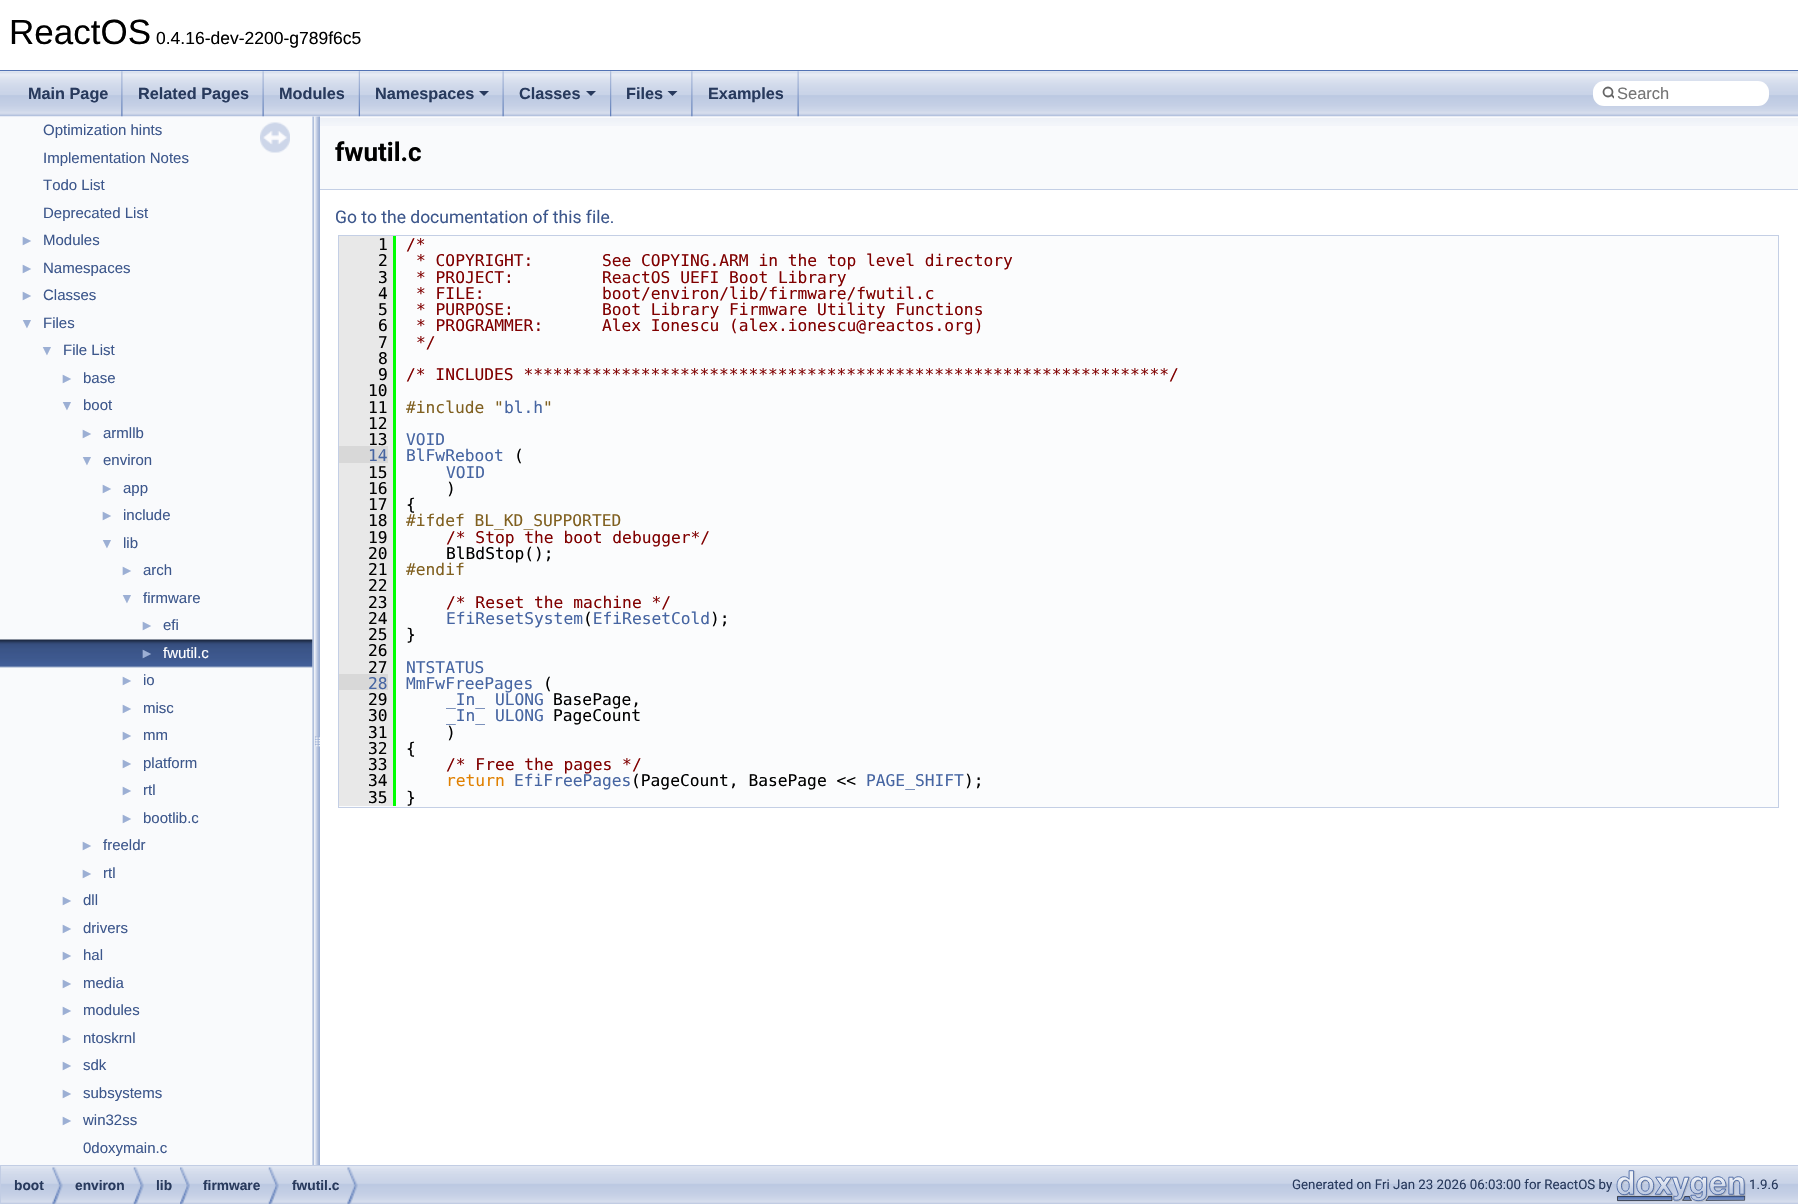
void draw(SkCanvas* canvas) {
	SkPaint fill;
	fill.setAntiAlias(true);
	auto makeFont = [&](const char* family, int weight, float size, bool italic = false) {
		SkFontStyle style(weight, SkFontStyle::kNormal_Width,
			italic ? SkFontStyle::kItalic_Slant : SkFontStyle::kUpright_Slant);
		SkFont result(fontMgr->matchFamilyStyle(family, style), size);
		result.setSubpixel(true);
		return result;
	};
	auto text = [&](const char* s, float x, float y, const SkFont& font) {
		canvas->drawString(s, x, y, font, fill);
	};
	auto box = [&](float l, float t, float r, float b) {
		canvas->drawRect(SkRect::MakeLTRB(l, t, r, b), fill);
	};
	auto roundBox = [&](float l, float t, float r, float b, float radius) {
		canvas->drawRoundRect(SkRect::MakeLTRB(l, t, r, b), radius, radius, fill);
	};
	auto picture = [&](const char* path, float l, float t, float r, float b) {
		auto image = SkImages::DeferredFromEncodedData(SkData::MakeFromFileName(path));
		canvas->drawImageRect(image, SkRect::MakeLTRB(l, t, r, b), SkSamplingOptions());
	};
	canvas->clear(0xFFFFFFFF);
	fill.setColor(0xFF5373B4);
	box(0, 70, 1798, 71);
	fill.setColor(0xFFF9FAFC);
	box(0, 116, 313, 1165);
	picture("image5.png", 0, 639, 313, 668);
	picture("image7.png", 312, 116, 320, 1165);
	box(320, 116, 1798, 189);
	picture("image0.png", 0, 71, 1798, 117);
	picture("image1.png", 121, 71, 123, 117);
	picture("image2.png", 262, 71, 264, 117);
	picture("image3.png", 358, 71, 360, 117);
	picture("image2.png", 502, 71, 504, 117);
	fill.setColor(0xFF283A5D);
	canvas->drawPath(SkPathBuilder().moveTo(479, 91).lineTo(489, 91).lineTo(484, 96).close().detach(), fill);
	picture("image4.png", 610, 71, 612, 117);
	canvas->drawPath(SkPathBuilder().moveTo(586, 91).lineTo(596, 91).lineTo(591, 96).close().detach(), fill);
	picture("image1.png", 691, 71, 693, 117);
	canvas->drawPath(SkPathBuilder().moveTo(667.5f, 91).lineTo(677.5f, 91).lineTo(672.5f, 96).close().detach(), fill);
	picture("image2.png", 797, 71, 799, 117);
	fill.setColor(0xFFFFFFFF);
	roundBox(1593, 81, 1769, 106, 11);
	fill.setStyle(SkPaint::kStroke_Style);
	fill.setStrokeWidth(1.8f);
	fill.setColor(0xFF656565);
	canvas->drawCircle(1608, 92, 4.5f, fill);
	canvas->save();
	canvas->clipRect(SkRect::MakeLTRB(1601, 81, 1614, 105));
	fill.setStrokeCap(SkPaint::kRound_Cap);
	canvas->drawPath(SkPathBuilder().moveTo(1611.5f, 95).lineTo(1615, 98.5f).detach(), fill);
	canvas->restore();
	picture("image6.png", 260, 122, 290, 153);
	picture("image8.png", 320, 118, 1798, 126);
	fill.setStyle(SkPaint::kFill_Style);
	fill.setColor(0xFFC4CFE5);
	box(320, 189, 1798, 190);
	fill.setColor(0xFFFBFCFD);
	canvas->drawRect(SkRect::MakeLTRB(338.5f, 235.5f, 1778.5f, 807.5f), fill);
	fill.setStyle(SkPaint::kStroke_Style);
	fill.setStrokeWidth(1);
	fill.setStrokeCap(SkPaint::kButt_Cap);
	fill.setColor(0xFFC4CFE5);
	canvas->drawRect(SkRect::MakeLTRB(338.5f, 235.5f, 1778.5f, 807.5f), fill);
	fill.setStyle(SkPaint::kFill_Style);
	fill.setColor(0xFFE8E8E8);
	box(339, 236, 393, 446);
	fill.setColor(0xFF00FF00);
	box(393, 236, 396, 806);
	fill.setColor(0xFFE8E8E8);
	box(388, 446, 393, 463);
	fill.setColor(0xFFD8D8D8);
	box(339, 446, 388, 463);
	fill.setColor(0xFFE8E8E8);
	box(339, 463, 393, 674);
	box(388, 674, 393, 690);
	fill.setColor(0xFFD8D8D8);
	box(339, 674, 388, 690);
	fill.setColor(0xFFE8E8E8);
	box(339, 690, 393, 806);
	picture("image9.png", 1, 1166, 1798, 1204);
	fill.setStyle(SkPaint::kStroke_Style);
	fill.setColor(0xFFC2CDE4);
	canvas->drawRect(SkRect::MakeLTRB(0.5f, 1165.5f, 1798.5f, 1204.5f), fill);
	picture("image10.png", 52, 1167, 63, 1204);
	picture("image11.png", 133, 1167, 144, 1204);
	picture("image12.png", 180, 1167, 190, 1204);
	picture("image13.png", 268, 1167, 279, 1204);
	picture("image10.png", 347, 1167, 358, 1204);
	picture("image14.png", 1616, 1170, 1746, 1203);
	auto font1 = makeFont("Liberation Sans", 400, 35);
	fill.setStyle(SkPaint::kFill_Style);
	fill.setColor(0xFF000000);
	text("ReactOS", 9, 44, font1);
	auto font2 = makeFont("Liberation Sans", 400, 17.5f);
	text("0.4.16-dev-2200-g789f6c5", 156, 44, font2);
	auto font3 = makeFont("Liberation Sans", 700, 16.25f);
	fill.setColor(0xFF283A5D);
	text("Main Page", 28, 99, font3);
	text("Related Pages", 138, 99, font3);
	text("Modules", 279, 99, font3);
	text("Namespaces", 375, 99, font3);
	text("Classes", 519, 99, font3);
	text("Files", 626, 99, font3);
	text("Examples", 708, 99, font3);
	auto font4 = makeFont("Liberation Sans", 400, 16.5f);
	fill.setColor(0xFF757575);
	text("Search", 1617, 99, font4);
	auto font5 = makeFont("Liberation Sans", 400, 15);
	fill.setColor(0xFF3D578C);
	text("Optimization hints", 43, 135, font5);
	text("Implementation Notes", 43, 163, font5);
	text("Todo List", 43, 190, font5);
	text("Deprecated List", 43, 218, font5);
	auto font6 = makeFont("Liberation Sans", 400, 14);
	fill.setColor(0xFF9CAFD4);
	text("►", 20, 245, font6);
	fill.setColor(0xFF3D578C);
	text("Modules", 43, 245, font5);
	fill.setColor(0xFF9CAFD4);
	text("►", 20, 273, font6);
	fill.setColor(0xFF3D578C);
	text("Namespaces", 43, 273, font5);
	fill.setColor(0xFF9CAFD4);
	text("►", 20, 300, font6);
	fill.setColor(0xFF3D578C);
	text("Classes", 43, 300, font5);
	fill.setColor(0xFF9CAFD4);
	text("▼", 20, 328, font6);
	fill.setColor(0xFF3D578C);
	text("Files", 43, 328, font5);
	fill.setColor(0xFF9CAFD4);
	text("▼", 40, 355, font6);
	fill.setColor(0xFF3D578C);
	text("File List", 63, 355, font5);
	fill.setColor(0xFF9CAFD4);
	text("►", 60, 383, font6);
	fill.setColor(0xFF3D578C);
	text("base", 83, 383, font5);
	fill.setColor(0xFF9CAFD4);
	text("▼", 60, 410, font6);
	fill.setColor(0xFF3D578C);
	text("boot", 83, 410, font5);
	fill.setColor(0xFF9CAFD4);
	text("►", 80, 438, font6);
	fill.setColor(0xFF3D578C);
	text("armllb", 103, 438, font5);
	fill.setColor(0xFF9CAFD4);
	text("▼", 80, 465, font6);
	fill.setColor(0xFF3D578C);
	text("environ", 103, 465, font5);
	fill.setColor(0xFF9CAFD4);
	text("►", 100, 493, font6);
	fill.setColor(0xFF3D578C);
	text("app", 123, 493, font5);
	fill.setColor(0xFF9CAFD4);
	text("►", 100, 520, font6);
	fill.setColor(0xFF3D578C);
	text("include", 123, 520, font5);
	fill.setColor(0xFF9CAFD4);
	text("▼", 100, 548, font6);
	fill.setColor(0xFF3D578C);
	text("lib", 123, 548, font5);
	fill.setColor(0xFF9CAFD4);
	text("►", 120, 575, font6);
	fill.setColor(0xFF3D578C);
	text("arch", 143, 575, font5);
	fill.setColor(0xFF9CAFD4);
	text("▼", 120, 603, font6);
	fill.setColor(0xFF3D578C);
	text("firmware", 143, 603, font5);
	fill.setColor(0xFF9CAFD4);
	text("►", 140, 630, font6);
	fill.setColor(0xFF3D578C);
	text("efi", 163, 630, font5);
	fill.setColor(0xFF9CAFD4);
	text("►", 140, 658, font6);
	fill.setColor(0xFFFFFFFF);
	text("fwutil.c", 163, 658, font5);
	fill.setColor(0xFF9CAFD4);
	text("►", 120, 685, font6);
	fill.setColor(0xFF3D578C);
	text("io", 143, 685, font5);
	fill.setColor(0xFF9CAFD4);
	text("►", 120, 713, font6);
	fill.setColor(0xFF3D578C);
	text("misc", 143, 713, font5);
	fill.setColor(0xFF9CAFD4);
	text("►", 120, 740, font6);
	fill.setColor(0xFF3D578C);
	text("mm", 143, 740, font5);
	fill.setColor(0xFF9CAFD4);
	text("►", 120, 768, font6);
	fill.setColor(0xFF3D578C);
	text("platform", 143, 768, font5);
	fill.setColor(0xFF9CAFD4);
	text("►", 120, 795, font6);
	fill.setColor(0xFF3D578C);
	text("rtl", 143, 795, font5);
	fill.setColor(0xFF9CAFD4);
	text("►", 120, 823, font6);
	fill.setColor(0xFF3D578C);
	text("bootlib.c", 143, 823, font5);
	fill.setColor(0xFF9CAFD4);
	text("►", 80, 850, font6);
	fill.setColor(0xFF3D578C);
	text("freeldr", 103, 850, font5);
	fill.setColor(0xFF9CAFD4);
	text("►", 80, 878, font6);
	fill.setColor(0xFF3D578C);
	text("rtl", 103, 878, font5);
	fill.setColor(0xFF9CAFD4);
	text("►", 60, 905, font6);
	fill.setColor(0xFF3D578C);
	text("dll", 83, 905, font5);
	fill.setColor(0xFF9CAFD4);
	text("►", 60, 933, font6);
	fill.setColor(0xFF3D578C);
	text("drivers", 83, 933, font5);
	fill.setColor(0xFF9CAFD4);
	text("►", 60, 960, font6);
	fill.setColor(0xFF3D578C);
	text("hal", 83, 960, font5);
	fill.setColor(0xFF9CAFD4);
	text("►", 60, 988, font6);
	fill.setColor(0xFF3D578C);
	text("media", 83, 988, font5);
	fill.setColor(0xFF9CAFD4);
	text("►", 60, 1015, font6);
	fill.setColor(0xFF3D578C);
	text("modules", 83, 1015, font5);
	fill.setColor(0xFF9CAFD4);
	text("►", 60, 1043, font6);
	fill.setColor(0xFF3D578C);
	text("ntoskrnl", 83, 1043, font5);
	fill.setColor(0xFF9CAFD4);
	text("►", 60, 1070, font6);
	fill.setColor(0xFF3D578C);
	text("sdk", 83, 1070, font5);
	fill.setColor(0xFF9CAFD4);
	text("►", 60, 1098, font6);
	fill.setColor(0xFF3D578C);
	text("subsystems", 83, 1098, font5);
	fill.setColor(0xFF9CAFD4);
	text("►", 60, 1125, font6);
	fill.setColor(0xFF3D578C);
	text("win32ss", 83, 1125, font5);
	text("0doxymain.c", 83, 1153, font5);
	auto font7 = makeFont("Roboto", 700, 26);
	fill.setColor(0xFF000000);
	text("fwutil.c", 335, 161, font7);
	auto font8 = makeFont("Roboto", 400, 17.5f);
	fill.setColor(0xFF3D578C);
	text("Go to the documentation of this file.", 335, 223, font8);
	auto font9 = makeFont("DejaVu Sans Mono", 400, 16.25f);
	fill.setColor(0xFF000000);
	text("1", 378, 250, font9);
	fill.setColor(0xFF800000);
	text("/*", 406, 250, font9);
	fill.setColor(0xFF000000);
	text("2", 378, 266, font9);
	fill.setColor(0xFF800000);
	text("* COPYRIGHT:       See COPYING.ARM in the top level directory", 416, 266, font9);
	fill.setColor(0xFF000000);
	text("3", 378, 283, font9);
	fill.setColor(0xFF800000);
	text("* PROJECT:         ReactOS UEFI Boot Library", 416, 283, font9);
	fill.setColor(0xFF000000);
	text("4", 378, 299, font9);
	fill.setColor(0xFF800000);
	text("* FILE:            boot/environ/lib/firmware/fwutil.c", 416, 299, font9);
	fill.setColor(0xFF000000);
	text("5", 378, 315, font9);
	fill.setColor(0xFF800000);
	text("* PURPOSE:         Boot Library Firmware Utility Functions", 416, 315, font9);
	fill.setColor(0xFF000000);
	text("6", 378, 331, font9);
	fill.setColor(0xFF800000);
	text("* PROGRAMMER:      Alex Ionescu (alex.ionescu@reactos.org)", 416, 331, font9);
	fill.setColor(0xFF000000);
	text("7", 378, 348, font9);
	fill.setColor(0xFF800000);
	text("*/", 416, 348, font9);
	fill.setColor(0xFF000000);
	text("8", 378, 364, font9);
	text("9", 378, 380, font9);
	fill.setColor(0xFF800000);
	text("/* INCLUDES ******************************************************************/", 406, 380, font9);
	fill.setColor(0xFF000000);
	text("10", 368, 396, font9);
	text("11", 368, 413, font9);
	fill.setColor(0xFF806020);
	text("#include \"", 406, 413, font9);
	fill.setColor(0xFF4665A2);
	text("bl.h", 504, 413, font9);
	fill.setColor(0xFF806020);
	text("\"", 543, 413, font9);
	fill.setColor(0xFF000000);
	text("12", 368, 429, font9);
	text("13", 368, 445, font9);
	fill.setColor(0xFF4665A2);
	text("VOID", 406, 445, font9);
	text("14", 368, 461, font9);
	text("BlFwReboot", 406, 461, font9);
	fill.setColor(0xFF000000);
	text("(", 514, 461, font9);
	text("15", 368, 478, font9);
	fill.setColor(0xFF4665A2);
	text("VOID", 446, 478, font9);
	fill.setColor(0xFF000000);
	text("16", 368, 494, font9);
	text(")", 446, 494, font9);
	text("17", 368, 510, font9);
	text("{", 406, 510, font9);
	text("18", 368, 526, font9);
	fill.setColor(0xFF806020);
	text("#ifdef BL_KD_SUPPORTED", 406, 526, font9);
	fill.setColor(0xFF000000);
	text("19", 368, 543, font9);
	fill.setColor(0xFF800000);
	text("/* Stop the boot debugger*/", 446, 543, font9);
	fill.setColor(0xFF000000);
	text("20", 368, 559, font9);
	text("BlBdStop();", 446, 559, font9);
	text("21", 368, 575, font9);
	fill.setColor(0xFF806020);
	text("#endif", 406, 575, font9);
	fill.setColor(0xFF000000);
	text("22", 368, 591, font9);
	text("23", 368, 608, font9);
	fill.setColor(0xFF800000);
	text("/* Reset the machine */", 446, 608, font9);
	fill.setColor(0xFF000000);
	text("24", 368, 624, font9);
	fill.setColor(0xFF4665A2);
	text("EfiResetSystem EfiResetCold", 446, 624, font9);
	fill.setColor(0xFF000000);
	text("(", 583, 624, font9);
	text(");", 710, 624, font9);
	text("25", 368, 640, font9);
	text("}", 406, 640, font9);
	text("26", 368, 656, font9);
	text("27", 368, 673, font9);
	fill.setColor(0xFF4665A2);
	text("NTSTATUS", 406, 673, font9);
	text("28", 368, 689, font9);
	text("MmFwFreePages", 406, 689, font9);
	fill.setColor(0xFF000000);
	text("(", 543, 689, font9);
	text("29", 368, 705, font9);
	fill.setColor(0xFF4665A2);
	text("_In_ ULONG", 446, 705, font9);
	fill.setColor(0xFF000000);
	text("BasePage,", 553, 705, font9);
	text("30", 368, 721, font9);
	fill.setColor(0xFF4665A2);
	text("_In_ ULONG", 446, 721, font9);
	fill.setColor(0xFF000000);
	text("PageCount", 553, 721, font9);
	text("31", 368, 738, font9);
	text(")", 446, 738, font9);
	text("32", 368, 754, font9);
	text("{", 406, 754, font9);
	text("33", 368, 770, font9);
	fill.setColor(0xFF800000);
	text("/* Free the pages */", 446, 770, font9);
	fill.setColor(0xFF000000);
	text("34", 368, 786, font9);
	fill.setColor(0xFFE08000);
	text("return", 446, 786, font9);
	fill.setColor(0xFF4665A2);
	text("EfiFreePages", 514, 786, font9);
	fill.setColor(0xFF000000);
	text("(PageCount, BasePage <<", 631, 786, font9);
	fill.setColor(0xFF4665A2);
	text("PAGE_SHIFT", 866, 786, font9);
	fill.setColor(0xFF000000);
	text(");", 964, 786, font9);
	text("35", 368, 803, font9);
	text("}", 406, 803, font9);
	auto font10 = makeFont("Liberation Sans", 700, 13.75f);
	fill.setColor(0xFF283A5D);
	text("boot", 14, 1190, font10);
	text("environ", 75, 1190, font10);
	text("lib", 156, 1190, font10);
	text("firmware", 203, 1190, font10);
	text("fwutil.c", 292, 1190, font10);
	auto font11 = makeFont("Roboto", 400, 13.3f);
	text("Generated on Fri Jan 23 2026 06:03:00 for ReactOS by", 1292, 1189, font11);
	text("1.9.6", 1749, 1189, font11);
}
